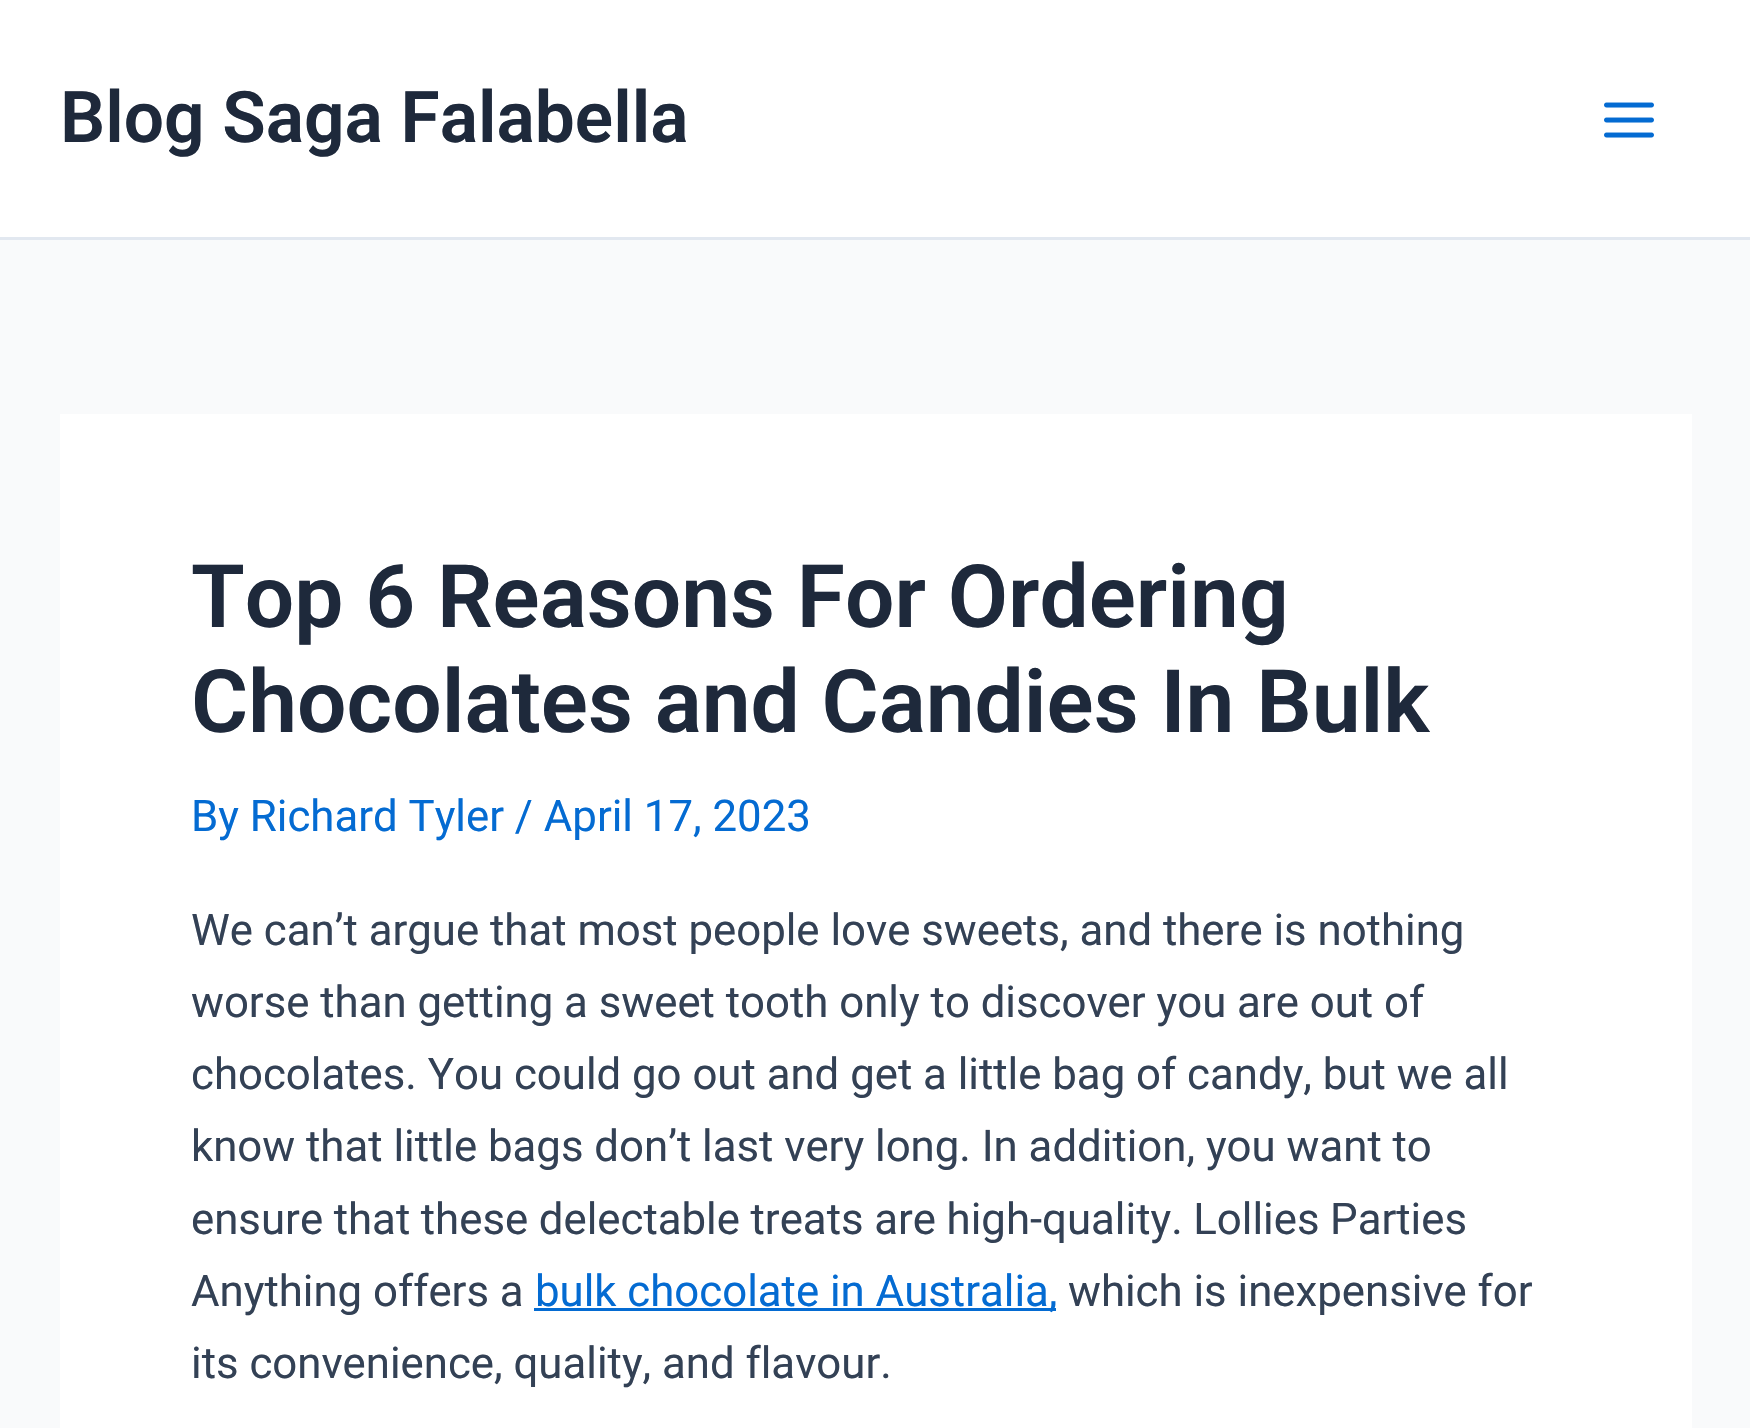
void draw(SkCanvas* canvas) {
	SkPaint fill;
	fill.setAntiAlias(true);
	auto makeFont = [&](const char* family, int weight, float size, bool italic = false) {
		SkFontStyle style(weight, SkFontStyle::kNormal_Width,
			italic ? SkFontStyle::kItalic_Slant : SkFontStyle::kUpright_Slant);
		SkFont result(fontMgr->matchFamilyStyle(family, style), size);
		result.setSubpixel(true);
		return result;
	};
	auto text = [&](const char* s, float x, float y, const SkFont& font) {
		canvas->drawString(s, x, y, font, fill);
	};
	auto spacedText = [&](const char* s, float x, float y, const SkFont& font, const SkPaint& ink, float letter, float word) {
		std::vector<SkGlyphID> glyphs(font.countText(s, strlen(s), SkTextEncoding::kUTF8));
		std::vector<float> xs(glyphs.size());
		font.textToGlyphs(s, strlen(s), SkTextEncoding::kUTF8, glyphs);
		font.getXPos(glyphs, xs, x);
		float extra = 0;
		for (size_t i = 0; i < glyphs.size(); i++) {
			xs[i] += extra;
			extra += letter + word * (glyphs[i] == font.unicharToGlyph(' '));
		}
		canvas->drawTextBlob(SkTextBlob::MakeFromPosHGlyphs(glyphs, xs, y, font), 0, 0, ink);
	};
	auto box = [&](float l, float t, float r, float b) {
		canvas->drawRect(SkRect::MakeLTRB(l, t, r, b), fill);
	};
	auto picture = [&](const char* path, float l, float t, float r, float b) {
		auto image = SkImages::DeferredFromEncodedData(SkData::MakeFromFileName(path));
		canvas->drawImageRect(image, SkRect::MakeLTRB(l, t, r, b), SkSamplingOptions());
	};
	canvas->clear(0xFFF9FAFB);
	fill.setColor(0xFFFFFFFF);
	box(0, 0, 1750, 237);
	fill.setColor(0xFFE2E8F0);
	box(0, 237, 1750, 240);
	picture("image0.png", 1604, 102, 1654, 138);
	fill.setColor(0xFFFFFFFF);
	box(60, 414, 1692, 1428);
	fill.setColor(0xFF046BD2);
	box(534, 1308, 1056, 1311);
	auto font1 = makeFont("Roboto", 600, 71.25f);
	fill.setColor(0xFF1E293B);
	text("Blog Saga Falabella", 60, 142, font1);
	auto font2 = makeFont("Roboto", 600, 87.5f);
	text("Top 6 Reasons For Ordering", 191, 627, font2);
	text("Chocolates and Candies In Bulk", 191, 732, font2);
	auto font3 = makeFont("Roboto", 400, 43.75f);
	fill.setColor(0xFF046BD2);
	text("By Richard Tyler / April 17, 2023", 191, 831, font3);
	fill.setColor(0xFF334155);
	text("We can’t argue that most people love sweets, and there is nothing", 191, 945, font3);
	text("worse than getting a sweet tooth only to discover you are out of", 191, 1017, font3);
	text("chocolates. You could go out and get a little bag of candy, but we all", 191, 1089, font3);
	text("know that little bags don’t last very long. In addition, you want to", 191, 1161, font3);
	spacedText("ensure that these delectable treats are high-quality. Lollies Parties", 191, 1234, font3, fill, 0, -0.25f);
	text("Anything offers a", 191, 1306, font3);
	fill.setColor(0xFF046BD2);
	text("bulk chocolate in Australia,", 535, 1306, font3);
	fill.setColor(0xFF334155);
	text("which is inexpensive for", 1068, 1306, font3);
	text("its convenience, quality, and flavour.", 191, 1378, font3);
}
